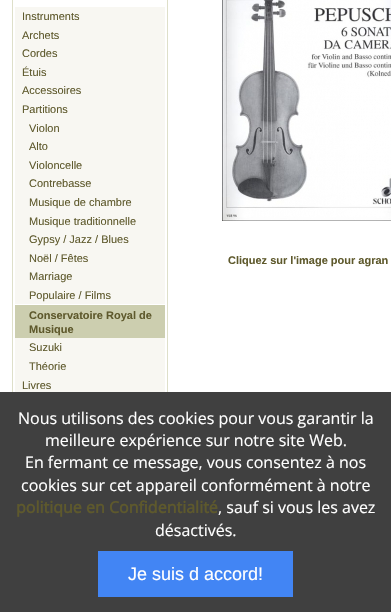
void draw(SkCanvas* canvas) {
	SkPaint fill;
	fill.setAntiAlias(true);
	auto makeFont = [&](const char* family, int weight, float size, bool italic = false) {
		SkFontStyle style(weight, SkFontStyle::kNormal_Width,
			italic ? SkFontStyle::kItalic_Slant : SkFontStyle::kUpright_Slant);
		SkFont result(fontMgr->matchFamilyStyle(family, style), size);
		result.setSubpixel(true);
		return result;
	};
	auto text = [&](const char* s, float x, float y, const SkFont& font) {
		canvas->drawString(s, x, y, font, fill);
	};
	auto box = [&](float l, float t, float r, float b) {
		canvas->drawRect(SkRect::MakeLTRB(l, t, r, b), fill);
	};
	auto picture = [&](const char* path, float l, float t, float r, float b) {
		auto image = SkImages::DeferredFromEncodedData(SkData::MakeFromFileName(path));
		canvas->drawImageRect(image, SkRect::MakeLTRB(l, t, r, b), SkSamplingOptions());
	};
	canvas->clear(0xFFFFFFFF);
	fill.setStyle(SkPaint::kStroke_Style);
	fill.setStrokeWidth(1);
	fill.setColor(0xFFDEDFC9);
	canvas->drawRect(SkRect::MakeLTRB(12.5f, -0.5f, 167.5f, 538.5f), fill);
	fill.setStyle(SkPaint::kFill_Style);
	fill.setColor(0xFFF8F7F2);
	box(15, 7, 165, 392);
	fill.setColor(0xFFCCCEAF);
	box(15, 305, 165, 338);
	fill.setColor(0xFFFFFFFF);
	box(15, 304, 165, 305);
	picture("image0.png", 222, 0, 391, 221);
	fill.setColor(0xFF404040);
	box(0, 392, 391, 612);
	fill.setColor(0xFF4285F4);
	box(98, 551, 293, 597);
	auto font1 = makeFont("Liberation Sans", 400, 11);
	fill.setColor(0xFF5E592C);
	text("Instruments", 22, 20, font1);
	text("Archets", 22, 39, font1);
	text("Cordes", 22, 57, font1);
	text("Étuis", 22, 76, font1);
	text("Accessoires", 22, 94, font1);
	text("Partitions", 22, 113, font1);
	text("Violon", 29, 132, font1);
	text("Alto", 29, 150, font1);
	text("Violoncelle", 29, 169, font1);
	text("Contrebasse", 29, 187, font1);
	text("Musique de chambre", 29, 206, font1);
	text("Musique traditionnelle", 29, 225, font1);
	text("Gypsy / Jazz / Blues", 29, 243, font1);
	text("Noël / Fêtes", 29, 262, font1);
	text("Marriage", 29, 280, font1);
	text("Populaire / Films", 29, 299, font1);
	auto font2 = makeFont("Liberation Sans", 700, 11);
	text("Conservatoire Royal de", 29, 319, font2);
	text("Musique", 29, 333, font2);
	text("Suzuki", 29, 351, font1);
	text("Théorie", 29, 370, font1);
	text("Livres", 22, 389, font1);
	text("Cliquez sur l'image pour agran", 228, 264, font2);
	auto font3 = makeFont("Open Sans", 400, 16);
	fill.setColor(0xFFFFFFFF);
	text("Nous utilisons des cookies pour vous garantir la", 18, 424, font3);
	text("meilleure expérience sur notre site Web.", 45, 446, font3);
	text("En fermant ce message, vous consentez à nos", 25, 468, font3);
	text("cookies sur cet appareil conformément à notre", 21, 491, font3);
	auto font4 = makeFont("Open Sans", 700, 16);
	fill.setColor(0xFF5E592C);
	text("politique en Confidentialité", 16, 513, font4);
	fill.setColor(0xFFFFFFFF);
	text(", sauf si vous les avez", 218, 513, font3);
	text("désactivés.", 155, 536, font3);
	auto font5 = makeFont("Liberation Sans", 400, 18);
	text("Je suis d accord!", 128, 580, font5);
}
